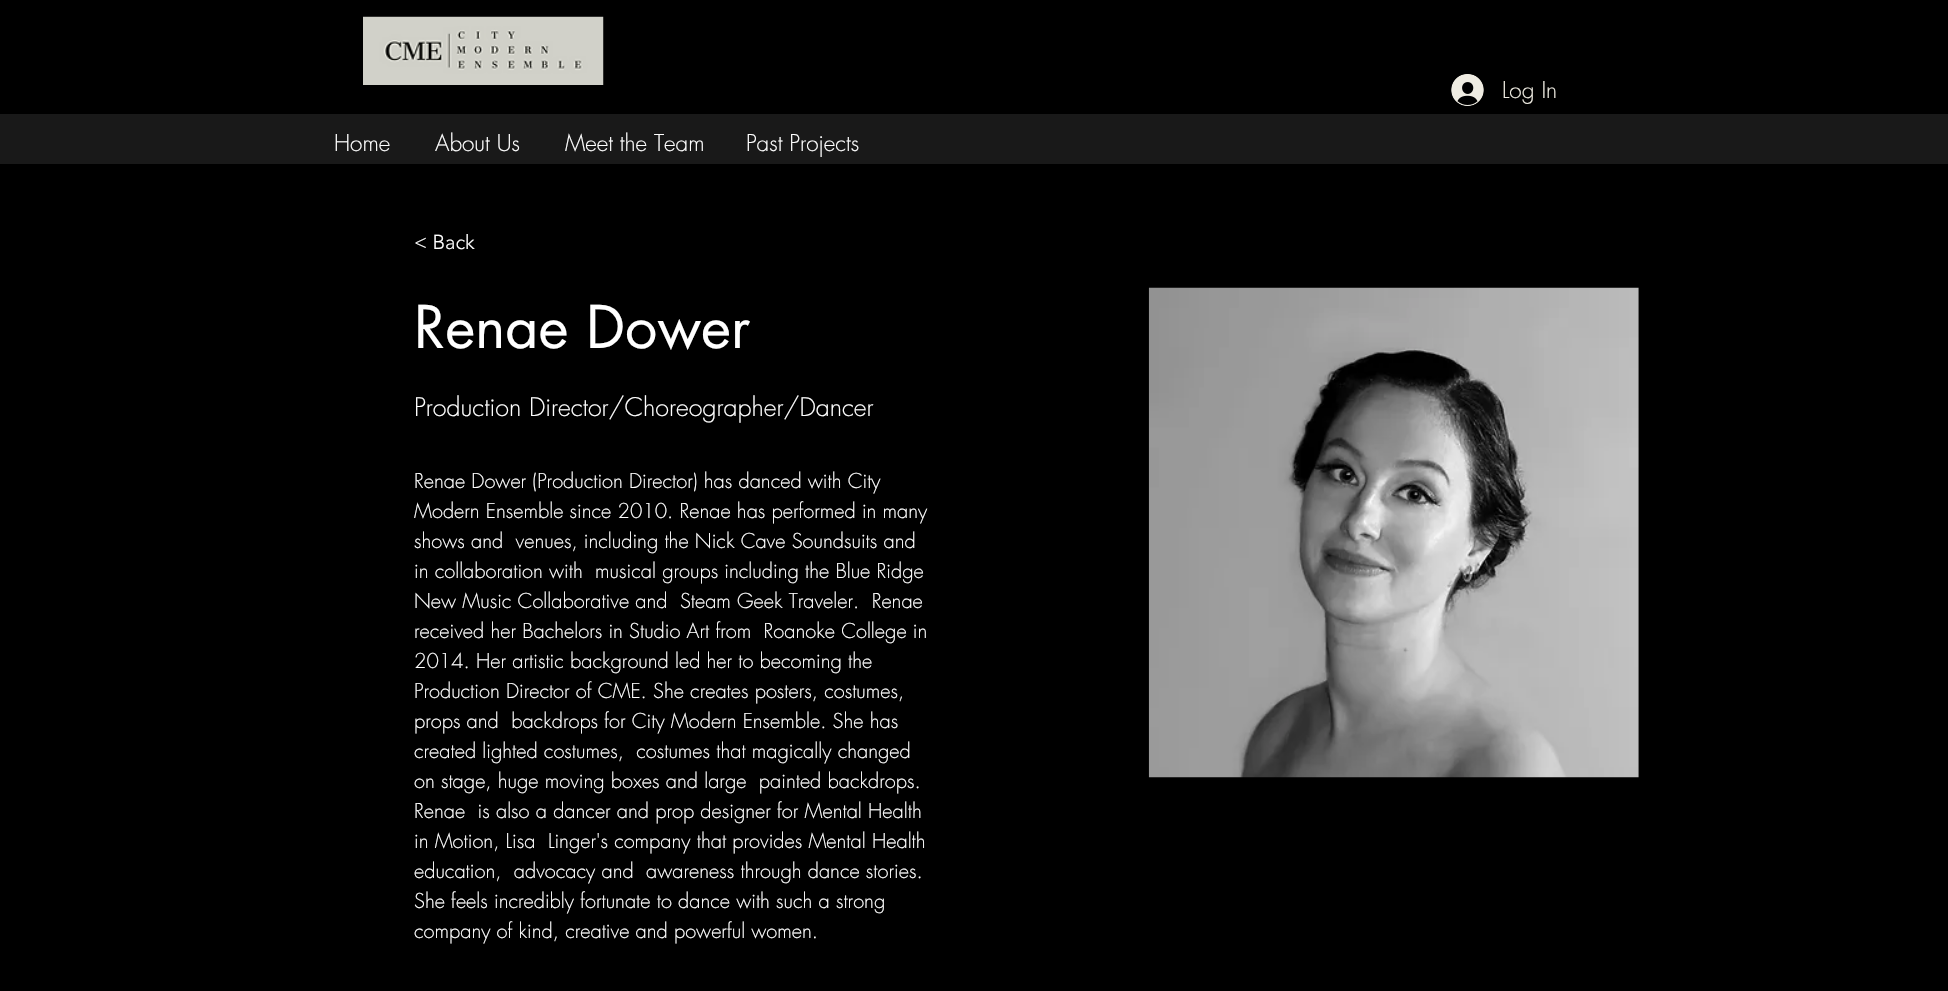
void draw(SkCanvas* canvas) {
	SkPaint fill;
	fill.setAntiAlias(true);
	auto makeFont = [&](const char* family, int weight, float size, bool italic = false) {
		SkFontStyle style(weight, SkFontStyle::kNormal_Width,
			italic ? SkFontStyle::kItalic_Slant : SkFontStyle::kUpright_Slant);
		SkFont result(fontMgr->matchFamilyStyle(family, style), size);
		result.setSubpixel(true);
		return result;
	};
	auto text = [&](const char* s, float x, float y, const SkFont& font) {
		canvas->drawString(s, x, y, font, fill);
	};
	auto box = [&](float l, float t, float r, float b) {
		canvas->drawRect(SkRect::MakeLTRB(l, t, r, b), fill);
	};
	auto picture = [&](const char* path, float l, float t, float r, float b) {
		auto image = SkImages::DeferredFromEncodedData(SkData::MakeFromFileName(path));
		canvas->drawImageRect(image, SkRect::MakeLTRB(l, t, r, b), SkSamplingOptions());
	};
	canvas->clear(0xFF000000);
	picture("image0.png", 363, 16, 604, 85);
	picture("image1.png", 1451, 74, 1484, 106);
	fill.setColor(0xFF191919);
	box(0, 114, 1948, 164);
	picture("image2.png", 1148, 287, 1639, 778);
	auto font1 = makeFont("futura", 300, 22.5f);
	fill.setColor(0xFFEFECE2);
	text("Log In", 1502, 98, font1);
	fill.setColor(0xFFFFFFFF);
	text("Home", 334, 151, font1);
	text("About Us", 435, 151, font1);
	text("Meet the Team", 565, 151, font1);
	text("Past Projects", 746, 151, font1);
	auto font2 = makeFont("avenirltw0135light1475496", 300, 20);
	text("< Back", 414, 249, font2);
	auto font3 = makeFont("futura", 400, 57.5f);
	text("Renae Dower", 414, 348, font3);
	auto font4 = makeFont("futura", 300, 25);
	text("Production Director/Choreographer/Dancer", 414, 416, font4);
	auto font5 = makeFont("futura", 300, 20);
	text("Renae Dower (Production Director) has danced with City", 414, 488, font5);
	text("Modern Ensemble since 2010. Renae has performed in many", 414, 518, font5);
	text("shows and  venues, including the Nick Cave Soundsuits and", 414, 548, font5);
	text("in collaboration with  musical groups including the Blue Ridge", 414, 578, font5);
	text("New Music Collaborative and  Steam Geek Traveler.  Renae", 414, 608, font5);
	text("received her Bachelors in Studio Art from  Roanoke College in", 414, 638, font5);
	text("2014. Her artistic background led her to becoming the", 414, 668, font5);
	text("Production Director of CME. She creates posters, costumes,", 414, 698, font5);
	text("props and  backdrops for City Modern Ensemble. She has", 414, 728, font5);
	text("created lighted costumes,  costumes that magically changed", 414, 758, font5);
	text("on stage, huge moving boxes and large  painted backdrops.", 414, 788, font5);
	text("Renae  is also a dancer and prop designer for Mental Health", 414, 818, font5);
	text("in Motion, Lisa  Linger's company that provides Mental Health", 414, 848, font5);
	text("education,  advocacy and  awareness through dance stories.", 414, 878, font5);
	text("She feels incredibly fortunate to dance with such a strong", 414, 908, font5);
	text("company of kind, creative and powerful women.", 414, 938, font5);
}
